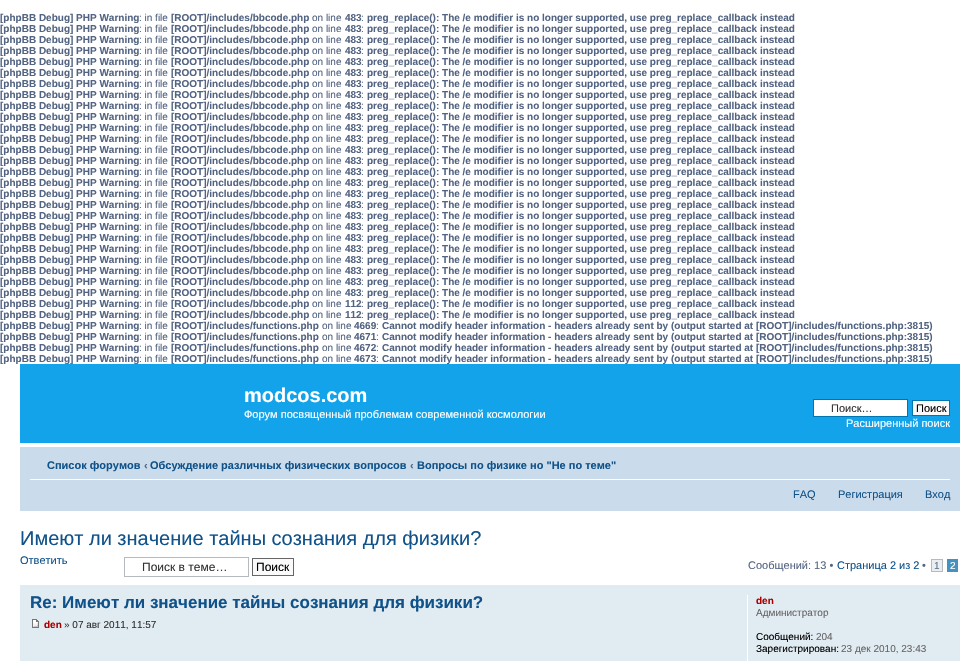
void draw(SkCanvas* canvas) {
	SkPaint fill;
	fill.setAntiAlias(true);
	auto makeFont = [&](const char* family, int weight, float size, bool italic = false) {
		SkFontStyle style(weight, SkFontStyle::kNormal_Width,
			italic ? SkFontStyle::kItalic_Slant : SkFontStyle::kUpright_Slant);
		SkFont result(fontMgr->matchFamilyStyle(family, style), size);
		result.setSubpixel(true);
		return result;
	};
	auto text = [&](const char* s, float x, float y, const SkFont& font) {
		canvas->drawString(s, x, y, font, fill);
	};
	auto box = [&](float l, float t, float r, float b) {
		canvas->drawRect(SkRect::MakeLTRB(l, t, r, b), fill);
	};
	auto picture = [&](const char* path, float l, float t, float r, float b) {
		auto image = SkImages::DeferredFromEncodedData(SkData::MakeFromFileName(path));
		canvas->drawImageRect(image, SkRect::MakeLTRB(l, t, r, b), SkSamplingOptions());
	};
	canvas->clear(0xFFFFFFFF);
	fill.setColor(0xFF12A3EB);
	box(20, 364, 960, 443);
	fill.setColor(0xFFFFFFFF);
	canvas->drawRect(SkRect::MakeLTRB(813.5f, 399.5f, 907.5f, 416.5f), fill);
	fill.setStyle(SkPaint::kStroke_Style);
	fill.setStrokeWidth(1);
	fill.setColor(0xFF0075B0);
	canvas->drawRect(SkRect::MakeLTRB(813.5f, 399.5f, 907.5f, 416.5f), fill);
	fill.setStyle(SkPaint::kFill_Style);
	fill.setColor(0xFFFAFAFA);
	canvas->drawRect(SkRect::MakeLTRB(912.5f, 400.5f, 949.5f, 415.5f), fill);
	fill.setStyle(SkPaint::kStroke_Style);
	fill.setColor(0xFF0075B0);
	canvas->drawRect(SkRect::MakeLTRB(912.5f, 400.5f, 949.5f, 415.5f), fill);
	fill.setStyle(SkPaint::kFill_Style);
	fill.setColor(0xFFCADCEB);
	box(20, 447, 960, 511);
	fill.setColor(0xFFFFFFFF);
	box(30, 479, 950, 480);
	fill.setStyle(SkPaint::kStroke_Style);
	fill.setColor(0xFFB4BAC0);
	canvas->drawRect(SkRect::MakeLTRB(124.5f, 557.5f, 248.5f, 576.5f), fill);
	fill.setStyle(SkPaint::kFill_Style);
	fill.setColor(0xFFFAFAFA);
	canvas->drawRect(SkRect::MakeLTRB(252.5f, 558.5f, 293.5f, 575.5f), fill);
	fill.setStyle(SkPaint::kStroke_Style);
	fill.setColor(0xFF666666);
	canvas->drawRect(SkRect::MakeLTRB(252.5f, 558.5f, 293.5f, 575.5f), fill);
	fill.setStyle(SkPaint::kFill_Style);
	fill.setColor(0xFFECEDEE);
	canvas->drawRect(SkRect::MakeLTRB(931.5f, 559.5f, 942.5f, 571.5f), fill);
	fill.setStyle(SkPaint::kStroke_Style);
	fill.setColor(0xFFB4BAC0);
	canvas->drawRect(SkRect::MakeLTRB(931.5f, 559.5f, 942.5f, 571.5f), fill);
	fill.setStyle(SkPaint::kFill_Style);
	fill.setColor(0xFF4692BF);
	box(947, 559, 958, 572);
	fill.setColor(0xFFE1EBF2);
	box(20, 585, 960, 661);
	picture("image0.png", 32, 619, 39, 628);
	fill.setColor(0xFFFFFFFF);
	box(747, 595, 748, 661);
	auto font1 = makeFont("Liberation Sans", 700, 10);
	fill.setColor(0xFF536482);
	text("[phpBB Debug] PHP Warning", 0, 21, font1);
	auto font2 = makeFont("Liberation Sans", 400, 10);
	text(": in file", 139, 21, font2);
	text("[ROOT]/includes/bbcode.php", 171, 21, font1);
	text("on line", 312, 21, font2);
	text("483", 345, 21, font1);
	text(":", 361, 21, font2);
	text("preg_replace(): The /e modifier is no longer supported, use preg_replace_callback instead", 367, 21, font1);
	text("[phpBB Debug] PHP Warning", 0, 32, font1);
	text(": in file", 139, 32, font2);
	text("[ROOT]/includes/bbcode.php", 171, 32, font1);
	text("on line", 312, 32, font2);
	text("483", 345, 32, font1);
	text(":", 361, 32, font2);
	text("preg_replace(): The /e modifier is no longer supported, use preg_replace_callback instead", 367, 32, font1);
	text("[phpBB Debug] PHP Warning", 0, 43, font1);
	text(": in file", 139, 43, font2);
	text("[ROOT]/includes/bbcode.php", 171, 43, font1);
	text("on line", 312, 43, font2);
	text("483", 345, 43, font1);
	text(":", 361, 43, font2);
	text("preg_replace(): The /e modifier is no longer supported, use preg_replace_callback instead", 367, 43, font1);
	text("[phpBB Debug] PHP Warning", 0, 54, font1);
	text(": in file", 139, 54, font2);
	text("[ROOT]/includes/bbcode.php", 171, 54, font1);
	text("on line", 312, 54, font2);
	text("483", 345, 54, font1);
	text(":", 361, 54, font2);
	text("preg_replace(): The /e modifier is no longer supported, use preg_replace_callback instead", 367, 54, font1);
	text("[phpBB Debug] PHP Warning", 0, 65, font1);
	text(": in file", 139, 65, font2);
	text("[ROOT]/includes/bbcode.php", 171, 65, font1);
	text("on line", 312, 65, font2);
	text("483", 345, 65, font1);
	text(":", 361, 65, font2);
	text("preg_replace(): The /e modifier is no longer supported, use preg_replace_callback instead", 367, 65, font1);
	text("[phpBB Debug] PHP Warning", 0, 76, font1);
	text(": in file", 139, 76, font2);
	text("[ROOT]/includes/bbcode.php", 171, 76, font1);
	text("on line", 312, 76, font2);
	text("483", 345, 76, font1);
	text(":", 361, 76, font2);
	text("preg_replace(): The /e modifier is no longer supported, use preg_replace_callback instead", 367, 76, font1);
	text("[phpBB Debug] PHP Warning", 0, 87, font1);
	text(": in file", 139, 87, font2);
	text("[ROOT]/includes/bbcode.php", 171, 87, font1);
	text("on line", 312, 87, font2);
	text("483", 345, 87, font1);
	text(":", 361, 87, font2);
	text("preg_replace(): The /e modifier is no longer supported, use preg_replace_callback instead", 367, 87, font1);
	text("[phpBB Debug] PHP Warning", 0, 98, font1);
	text(": in file", 139, 98, font2);
	text("[ROOT]/includes/bbcode.php", 171, 98, font1);
	text("on line", 312, 98, font2);
	text("483", 345, 98, font1);
	text(":", 361, 98, font2);
	text("preg_replace(): The /e modifier is no longer supported, use preg_replace_callback instead", 367, 98, font1);
	text("[phpBB Debug] PHP Warning", 0, 109, font1);
	text(": in file", 139, 109, font2);
	text("[ROOT]/includes/bbcode.php", 171, 109, font1);
	text("on line", 312, 109, font2);
	text("483", 345, 109, font1);
	text(":", 361, 109, font2);
	text("preg_replace(): The /e modifier is no longer supported, use preg_replace_callback instead", 367, 109, font1);
	text("[phpBB Debug] PHP Warning", 0, 120, font1);
	text(": in file", 139, 120, font2);
	text("[ROOT]/includes/bbcode.php", 171, 120, font1);
	text("on line", 312, 120, font2);
	text("483", 345, 120, font1);
	text(":", 361, 120, font2);
	text("preg_replace(): The /e modifier is no longer supported, use preg_replace_callback instead", 367, 120, font1);
	text("[phpBB Debug] PHP Warning", 0, 131, font1);
	text(": in file", 139, 131, font2);
	text("[ROOT]/includes/bbcode.php", 171, 131, font1);
	text("on line", 312, 131, font2);
	text("483", 345, 131, font1);
	text(":", 361, 131, font2);
	text("preg_replace(): The /e modifier is no longer supported, use preg_replace_callback instead", 367, 131, font1);
	text("[phpBB Debug] PHP Warning", 0, 142, font1);
	text(": in file", 139, 142, font2);
	text("[ROOT]/includes/bbcode.php", 171, 142, font1);
	text("on line", 312, 142, font2);
	text("483", 345, 142, font1);
	text(":", 361, 142, font2);
	text("preg_replace(): The /e modifier is no longer supported, use preg_replace_callback instead", 367, 142, font1);
	text("[phpBB Debug] PHP Warning", 0, 153, font1);
	text(": in file", 139, 153, font2);
	text("[ROOT]/includes/bbcode.php", 171, 153, font1);
	text("on line", 312, 153, font2);
	text("483", 345, 153, font1);
	text(":", 361, 153, font2);
	text("preg_replace(): The /e modifier is no longer supported, use preg_replace_callback instead", 367, 153, font1);
	text("[phpBB Debug] PHP Warning", 0, 164, font1);
	text(": in file", 139, 164, font2);
	text("[ROOT]/includes/bbcode.php", 171, 164, font1);
	text("on line", 312, 164, font2);
	text("483", 345, 164, font1);
	text(":", 361, 164, font2);
	text("preg_replace(): The /e modifier is no longer supported, use preg_replace_callback instead", 367, 164, font1);
	text("[phpBB Debug] PHP Warning", 0, 175, font1);
	text(": in file", 139, 175, font2);
	text("[ROOT]/includes/bbcode.php", 171, 175, font1);
	text("on line", 312, 175, font2);
	text("483", 345, 175, font1);
	text(":", 361, 175, font2);
	text("preg_replace(): The /e modifier is no longer supported, use preg_replace_callback instead", 367, 175, font1);
	text("[phpBB Debug] PHP Warning", 0, 186, font1);
	text(": in file", 139, 186, font2);
	text("[ROOT]/includes/bbcode.php", 171, 186, font1);
	text("on line", 312, 186, font2);
	text("483", 345, 186, font1);
	text(":", 361, 186, font2);
	text("preg_replace(): The /e modifier is no longer supported, use preg_replace_callback instead", 367, 186, font1);
	text("[phpBB Debug] PHP Warning", 0, 197, font1);
	text(": in file", 139, 197, font2);
	text("[ROOT]/includes/bbcode.php", 171, 197, font1);
	text("on line", 312, 197, font2);
	text("483", 345, 197, font1);
	text(":", 361, 197, font2);
	text("preg_replace(): The /e modifier is no longer supported, use preg_replace_callback instead", 367, 197, font1);
	text("[phpBB Debug] PHP Warning", 0, 208, font1);
	text(": in file", 139, 208, font2);
	text("[ROOT]/includes/bbcode.php", 171, 208, font1);
	text("on line", 312, 208, font2);
	text("483", 345, 208, font1);
	text(":", 361, 208, font2);
	text("preg_replace(): The /e modifier is no longer supported, use preg_replace_callback instead", 367, 208, font1);
	text("[phpBB Debug] PHP Warning", 0, 219, font1);
	text(": in file", 139, 219, font2);
	text("[ROOT]/includes/bbcode.php", 171, 219, font1);
	text("on line", 312, 219, font2);
	text("483", 345, 219, font1);
	text(":", 361, 219, font2);
	text("preg_replace(): The /e modifier is no longer supported, use preg_replace_callback instead", 367, 219, font1);
	text("[phpBB Debug] PHP Warning", 0, 230, font1);
	text(": in file", 139, 230, font2);
	text("[ROOT]/includes/bbcode.php", 171, 230, font1);
	text("on line", 312, 230, font2);
	text("483", 345, 230, font1);
	text(":", 361, 230, font2);
	text("preg_replace(): The /e modifier is no longer supported, use preg_replace_callback instead", 367, 230, font1);
	text("[phpBB Debug] PHP Warning", 0, 241, font1);
	text(": in file", 139, 241, font2);
	text("[ROOT]/includes/bbcode.php", 171, 241, font1);
	text("on line", 312, 241, font2);
	text("483", 345, 241, font1);
	text(":", 361, 241, font2);
	text("preg_replace(): The /e modifier is no longer supported, use preg_replace_callback instead", 367, 241, font1);
	text("[phpBB Debug] PHP Warning", 0, 252, font1);
	text(": in file", 139, 252, font2);
	text("[ROOT]/includes/bbcode.php", 171, 252, font1);
	text("on line", 312, 252, font2);
	text("483", 345, 252, font1);
	text(":", 361, 252, font2);
	text("preg_replace(): The /e modifier is no longer supported, use preg_replace_callback instead", 367, 252, font1);
	text("[phpBB Debug] PHP Warning", 0, 263, font1);
	text(": in file", 139, 263, font2);
	text("[ROOT]/includes/bbcode.php", 171, 263, font1);
	text("on line", 312, 263, font2);
	text("483", 345, 263, font1);
	text(":", 361, 263, font2);
	text("preg_replace(): The /e modifier is no longer supported, use preg_replace_callback instead", 367, 263, font1);
	text("[phpBB Debug] PHP Warning", 0, 274, font1);
	text(": in file", 139, 274, font2);
	text("[ROOT]/includes/bbcode.php", 171, 274, font1);
	text("on line", 312, 274, font2);
	text("483", 345, 274, font1);
	text(":", 361, 274, font2);
	text("preg_replace(): The /e modifier is no longer supported, use preg_replace_callback instead", 367, 274, font1);
	text("[phpBB Debug] PHP Warning", 0, 285, font1);
	text(": in file", 139, 285, font2);
	text("[ROOT]/includes/bbcode.php", 171, 285, font1);
	text("on line", 312, 285, font2);
	text("483", 345, 285, font1);
	text(":", 361, 285, font2);
	text("preg_replace(): The /e modifier is no longer supported, use preg_replace_callback instead", 367, 285, font1);
	text("[phpBB Debug] PHP Warning", 0, 296, font1);
	text(": in file", 139, 296, font2);
	text("[ROOT]/includes/bbcode.php", 171, 296, font1);
	text("on line", 312, 296, font2);
	text("483", 345, 296, font1);
	text(":", 361, 296, font2);
	text("preg_replace(): The /e modifier is no longer supported, use preg_replace_callback instead", 367, 296, font1);
	text("[phpBB Debug] PHP Warning", 0, 307, font1);
	text(": in file", 139, 307, font2);
	text("[ROOT]/includes/bbcode.php", 171, 307, font1);
	text("on line", 312, 307, font2);
	text("112", 345, 307, font1);
	text(":", 361, 307, font2);
	text("preg_replace(): The /e modifier is no longer supported, use preg_replace_callback instead", 367, 307, font1);
	text("[phpBB Debug] PHP Warning", 0, 318, font1);
	text(": in file", 139, 318, font2);
	text("[ROOT]/includes/bbcode.php", 171, 318, font1);
	text("on line", 312, 318, font2);
	text("112", 345, 318, font1);
	text(":", 361, 318, font2);
	text("preg_replace(): The /e modifier is no longer supported, use preg_replace_callback instead", 367, 318, font1);
	text("[phpBB Debug] PHP Warning", 0, 329, font1);
	text(": in file", 139, 329, font2);
	text("[ROOT]/includes/functions.php", 171, 329, font1);
	text("on line", 322, 329, font2);
	text("4669", 354, 329, font1);
	text(":", 376, 329, font2);
	text("Cannot modify header information - headers already sent by (output started at [ROOT]/includes/functions.php:3815)", 382, 329, font1);
	text("[phpBB Debug] PHP Warning", 0, 340, font1);
	text(": in file", 139, 340, font2);
	text("[ROOT]/includes/functions.php", 171, 340, font1);
	text("on line", 322, 340, font2);
	text("4671", 354, 340, font1);
	text(":", 376, 340, font2);
	text("Cannot modify header information - headers already sent by (output started at [ROOT]/includes/functions.php:3815)", 382, 340, font1);
	text("[phpBB Debug] PHP Warning", 0, 351, font1);
	text(": in file", 139, 351, font2);
	text("[ROOT]/includes/functions.php", 171, 351, font1);
	text("on line", 322, 351, font2);
	text("4672", 354, 351, font1);
	text(":", 376, 351, font2);
	text("Cannot modify header information - headers already sent by (output started at [ROOT]/includes/functions.php:3815)", 382, 351, font1);
	text("[phpBB Debug] PHP Warning", 0, 362, font1);
	text(": in file", 139, 362, font2);
	text("[ROOT]/includes/functions.php", 171, 362, font1);
	text("on line", 322, 362, font2);
	text("4673", 354, 362, font1);
	text(":", 376, 362, font2);
	text("Cannot modify header information - headers already sent by (output started at [ROOT]/includes/functions.php:3815)", 382, 362, font1);
	auto font3 = makeFont("Liberation Sans", 700, 20);
	fill.setColor(0xFFFFFFFF);
	text("modcos.com", 244, 402, font3);
	auto font4 = makeFont("Liberation Sans", 400, 11);
	text("Форум посвященный проблемам современной космологии", 244, 418, font4);
	fill.setColor(0xFF333333);
	text("Поиск…", 831, 412, font4);
	fill.setColor(0xFF000000);
	text("Поиск", 916, 412, font4);
	fill.setColor(0xFFFFFFFF);
	text("Расширенный поиск", 846, 427, font4);
	auto font5 = makeFont("Liberation Sans", 700, 11);
	fill.setColor(0xFF105289);
	text("Список форумов", 47, 469, font5);
	fill.setColor(0xFF536482);
	text("‹", 144, 469, font5);
	fill.setColor(0xFF105289);
	text("Обсуждение различных физических вопросов", 150, 469, font5);
	fill.setColor(0xFF536482);
	text("‹", 410, 469, font5);
	fill.setColor(0xFF105289);
	text("Вопросы по физике но \"Не по теме\"", 417, 469, font5);
	text("FAQ", 793, 498, font4);
	text("Регистрация", 838, 498, font4);
	text("Вход", 925, 498, font4);
	auto font6 = makeFont("Liberation Sans", 400, 20);
	text("Имеют ли значение тайны сознания для физики?", 20, 545, font6);
	text("Ответить", 20, 564, font4);
	auto font7 = makeFont("Liberation Sans", 400, 12);
	fill.setColor(0xFF333333);
	text("Поиск в теме…", 142, 571, font7);
	fill.setColor(0xFF000000);
	text("Поиск", 256, 571, font7);
	fill.setColor(0xFF536482);
	text("Сообщений: 13 •", 748, 569, font4);
	fill.setColor(0xFF105289);
	text("Страница 2 из 2", 837, 569, font4);
	fill.setColor(0xFF536482);
	text("•", 922, 569, font4);
	fill.setColor(0xFF5C758C);
	text("1", 934, 569, font2);
	fill.setColor(0xFFFFFFFF);
	text("2", 950, 569, font2);
	auto font8 = makeFont("Liberation Sans", 700, 17);
	fill.setColor(0xFF105289);
	text("Re: Имеют ли значение тайны сознания для физики?", 30, 608, font8);
	fill.setColor(0xFFAA0000);
	text("den", 44, 628, font1);
	fill.setColor(0xFF333333);
	text("» 07 авг 2011, 11:57", 64, 628, font2);
	fill.setColor(0xFFAA0000);
	text("den", 756, 604, font1);
	fill.setColor(0xFF666666);
	text("Администратор", 756, 616, font2);
	fill.setColor(0xFF000000);
	text("Сообщений:", 756, 640, font2);
	fill.setColor(0xFF666666);
	text("204", 816, 640, font2);
	fill.setColor(0xFF000000);
	text("Зарегистрирован:", 756, 652, font2);
	fill.setColor(0xFF666666);
	text("23 дек 2010, 23:43", 841, 652, font2);
}
